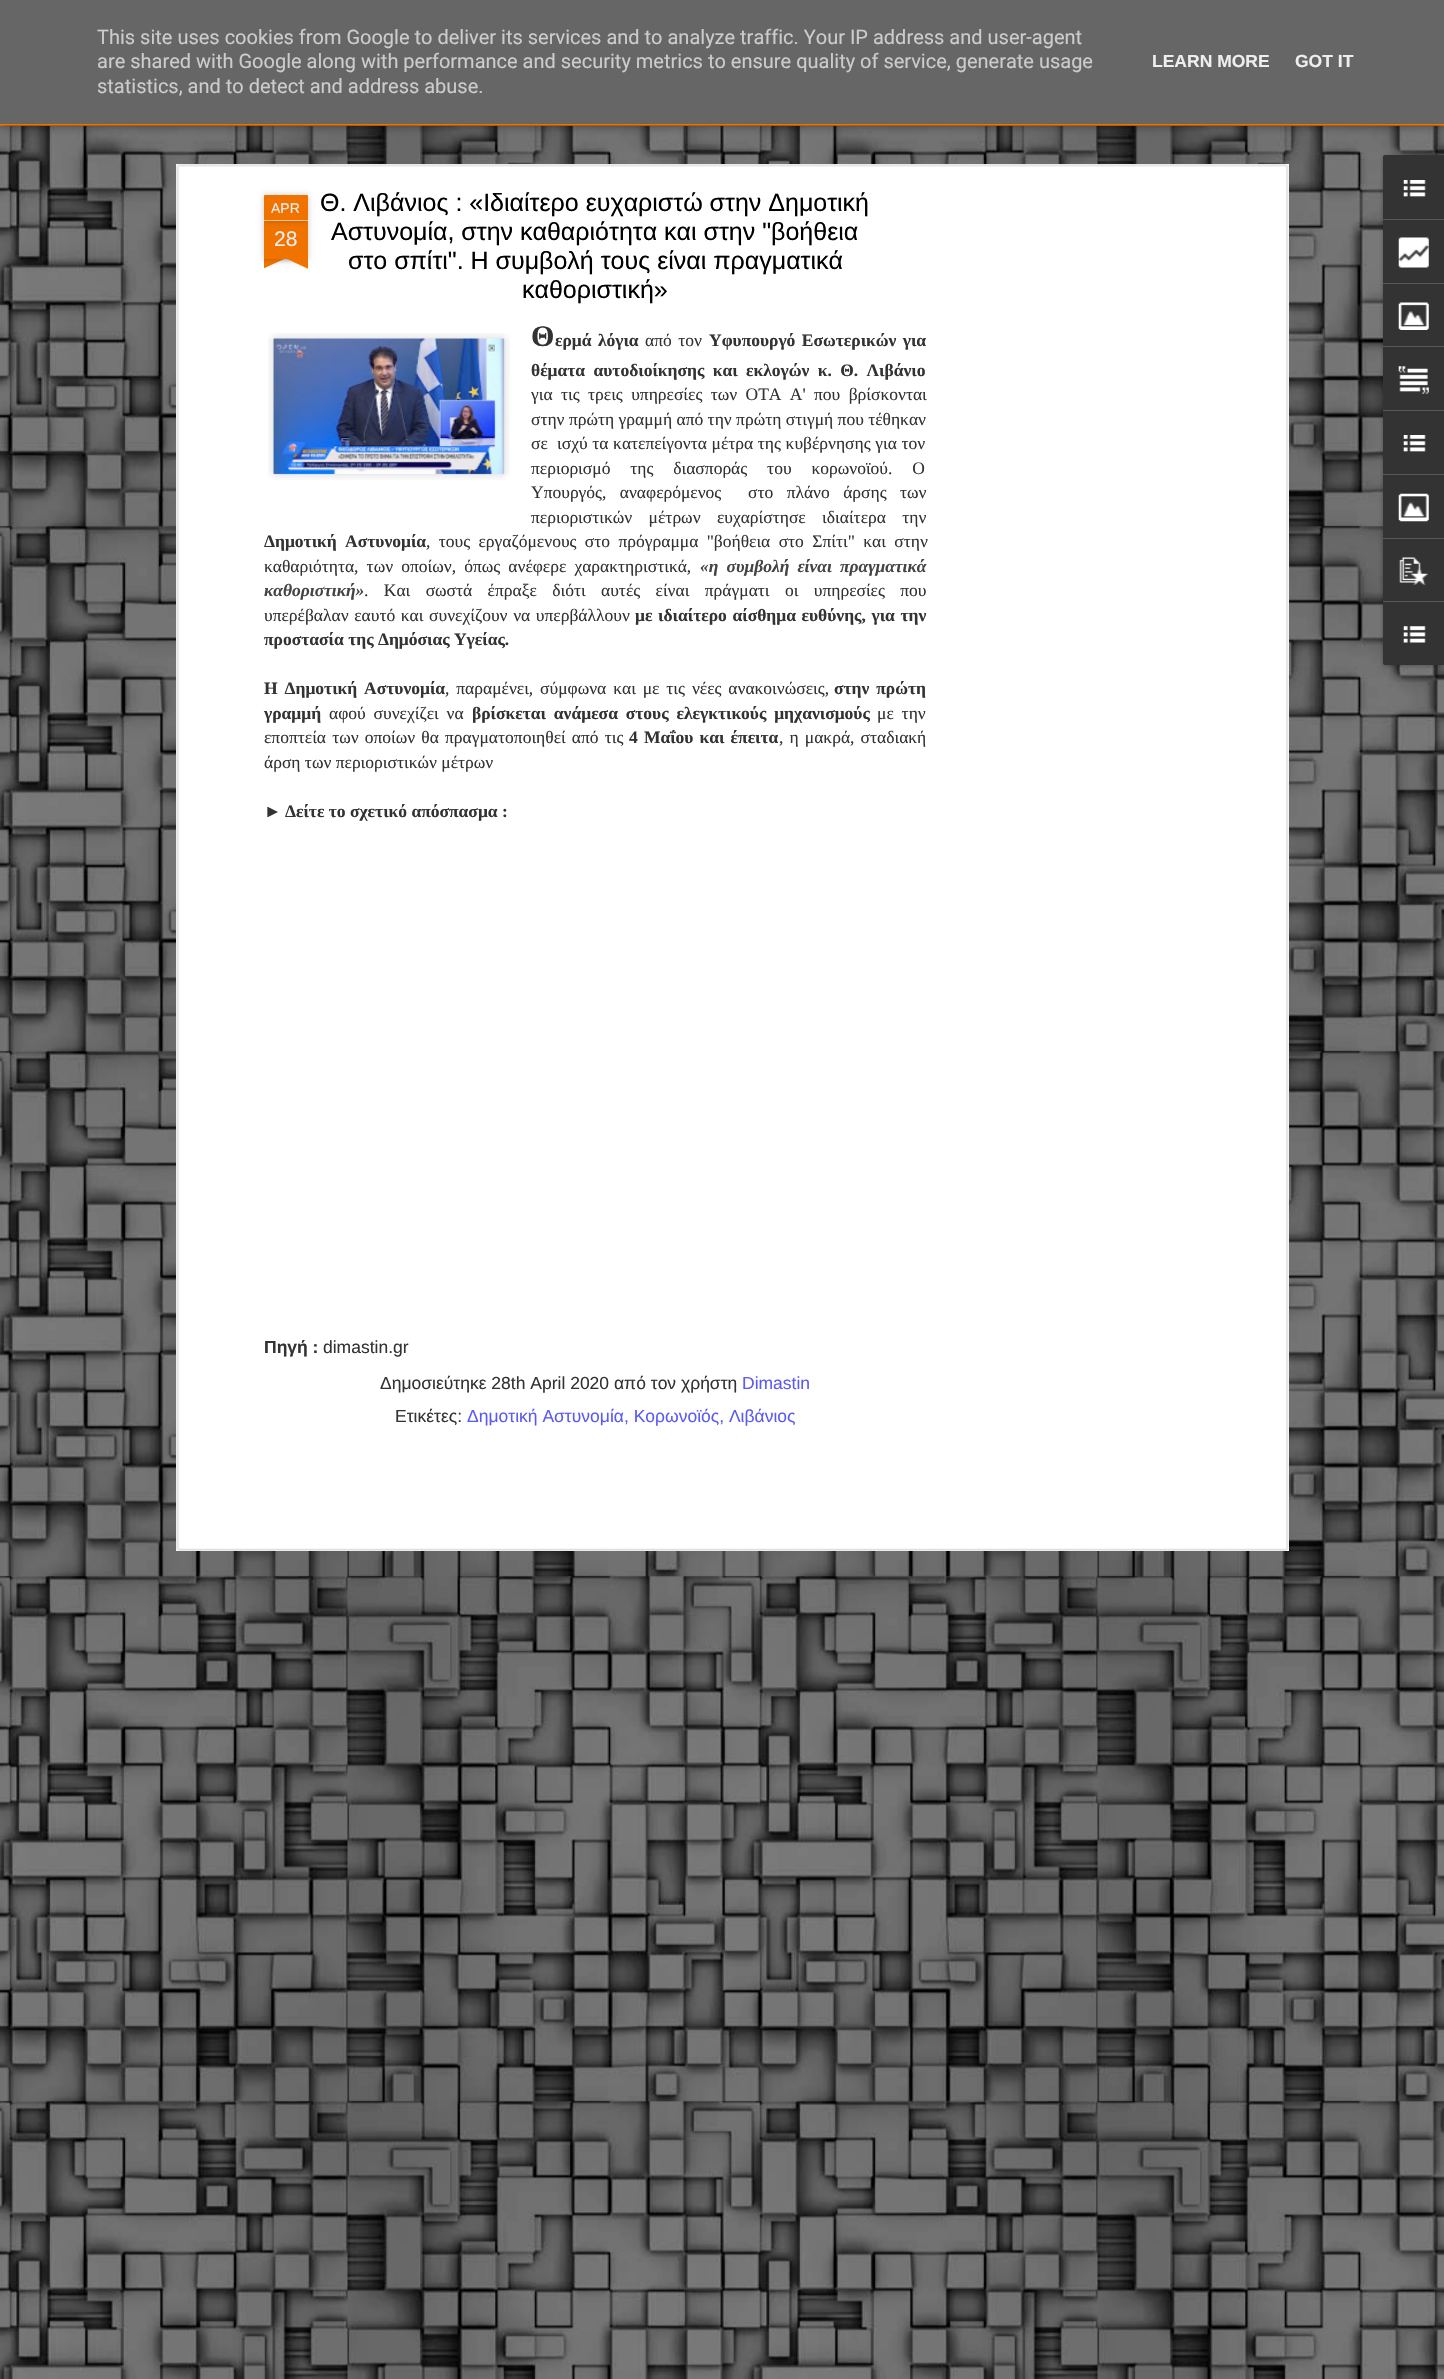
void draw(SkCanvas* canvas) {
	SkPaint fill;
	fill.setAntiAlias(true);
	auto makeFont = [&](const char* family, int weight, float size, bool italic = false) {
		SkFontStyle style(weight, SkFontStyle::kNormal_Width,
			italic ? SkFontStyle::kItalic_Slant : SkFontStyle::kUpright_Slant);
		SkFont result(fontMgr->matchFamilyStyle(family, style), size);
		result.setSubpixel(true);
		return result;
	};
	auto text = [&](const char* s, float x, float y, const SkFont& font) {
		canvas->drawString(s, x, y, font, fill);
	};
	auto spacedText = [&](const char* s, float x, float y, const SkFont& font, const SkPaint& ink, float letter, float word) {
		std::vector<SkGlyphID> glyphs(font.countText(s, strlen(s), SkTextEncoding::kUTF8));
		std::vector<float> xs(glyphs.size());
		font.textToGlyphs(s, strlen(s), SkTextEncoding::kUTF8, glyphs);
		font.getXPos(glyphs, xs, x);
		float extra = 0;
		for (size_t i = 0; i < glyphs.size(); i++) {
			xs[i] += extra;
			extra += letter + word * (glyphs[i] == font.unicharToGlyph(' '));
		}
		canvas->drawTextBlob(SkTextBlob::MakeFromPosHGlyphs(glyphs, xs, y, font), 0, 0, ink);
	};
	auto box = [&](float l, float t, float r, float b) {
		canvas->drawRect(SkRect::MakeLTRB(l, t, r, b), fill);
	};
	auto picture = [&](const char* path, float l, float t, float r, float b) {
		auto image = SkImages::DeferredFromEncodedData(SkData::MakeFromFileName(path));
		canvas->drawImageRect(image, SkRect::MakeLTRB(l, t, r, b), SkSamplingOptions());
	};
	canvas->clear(0xFFF07300);
	picture("image0.png", 0, 126, 1444, 2379);
	fill.setColor(0x80000000);
	fill.setMaskFilter(SkMaskFilter::MakeBlur(kNormal_SkBlurStyle, 5));
	canvas->drawRect(SkRect::MakeLTRB(0, 81, 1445, 125), fill);
	fill.setMaskFilter(nullptr);
	fill.setColor(0xFF666666);
	box(0, 0, 1444, 124);
	fill.setColor(0xFFF07300);
	box(0, 124, 1444, 125);
	fill.setColor(0xFFFFFFFF);
	box(176, 164, 1289, 1551);
	picture("image1.png", 176, 164, 1289, 1551);
	fill.setColor(0x33000000);
	fill.setMaskFilter(SkMaskFilter::MakeBlur(kNormal_SkBlurStyle, 3));
	canvas->drawRect(SkRect::MakeLTRB(264, 221, 308, 259), fill);
	fill.setMaskFilter(nullptr);
	fill.setColor(0xFFF07300);
	box(264, 221, 308, 259);
	fill.setColor(0x33000000);
	fill.setMaskFilter(SkMaskFilter::MakeBlur(kNormal_SkBlurStyle, 3));
	canvas->drawRoundRect(SkRect::MakeLTRB(264, 195, 308, 221), 1, 1, fill);
	fill.setMaskFilter(nullptr);
	fill.setColor(0xFFF07300);
	canvas->drawPath(SkPathBuilder().moveTo(265, 195).lineTo(307, 195).cubicTo(307.5f, 195, 308, 195.5f, 308, 196).lineTo(308, 221).lineTo(264, 221).lineTo(264, 196).cubicTo(264, 195.5f, 264.5f, 195, 265, 195).close().detach(), fill);
	fill.setColor(0xFFF9C799);
	box(264, 220, 308, 221);
	canvas->save();
	canvas->clipRect(SkRect::MakeLTRB(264, 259, 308, 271));
	fill.setColor(0x33000000);
	fill.setMaskFilter(SkMaskFilter::MakeBlur(kNormal_SkBlurStyle, 3));
	canvas->drawRect(SkRect::MakeLTRB(253, 246, 315, 259), fill);
	fill.setMaskFilter(nullptr);
	canvas->restore();
	canvas->save();
	canvas->clipRect(SkRect::MakeLTRB(264, 259, 308, 271));
	fill.setColor(0xFFF07300);
	canvas->drawPath(SkPathBuilder().moveTo(253, 260).lineTo(309, 234).lineTo(315, 245).lineTo(258, 271).close().detach(), fill);
	canvas->restore();
	canvas->save();
	canvas->clipRect(SkRect::MakeLTRB(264, 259, 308, 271));
	fill.setColor(0x33000000);
	fill.setMaskFilter(SkMaskFilter::MakeBlur(kNormal_SkBlurStyle, 3));
	canvas->drawRect(SkRect::MakeLTRB(256, 246, 319, 259), fill);
	fill.setMaskFilter(nullptr);
	canvas->restore();
	canvas->save();
	canvas->clipRect(SkRect::MakeLTRB(264, 259, 308, 271));
	fill.setColor(0xFFF07300);
	canvas->drawPath(SkPathBuilder().moveTo(262, 234).lineTo(318, 260).lineTo(313, 271).lineTo(257, 245).close().detach(), fill);
	canvas->restore();
	picture("image2.png", 268, 333, 510, 480);
	picture("image3.png", 273, 338, 505, 475);
	fill.setColor(0x4D000000);
	fill.setMaskFilter(SkMaskFilter::MakeBlur(kNormal_SkBlurStyle, 2));
	canvas->drawRoundRect(SkRect::MakeLTRB(1383, 156, 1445, 666), 2.5f, 2.5f, fill);
	fill.setMaskFilter(nullptr);
	fill.setColor(0xFF333333);
	canvas->drawPath(SkPathBuilder().moveTo(1385.5f, 155).lineTo(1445, 155).lineTo(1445, 665).lineTo(1385.5f, 665).cubicTo(1384, 665, 1383, 664, 1383, 662.5f).lineTo(1383, 157.5f).cubicTo(1383, 156, 1384, 155, 1385.5f, 155).close().detach(), fill);
	canvas->drawPath(SkPathBuilder().moveTo(1385.5f, 155).lineTo(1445, 155).lineTo(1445, 219).lineTo(1383, 219).lineTo(1383, 157.5f).cubicTo(1383, 156, 1384, 155, 1385.5f, 155).close().detach(), fill);
	picture("image4.png", 1403, 180, 1426, 197);
	fill.setColor(0xFF585858);
	box(1383, 219, 1444, 220);
	picture("image5.png", 1398, 237, 1429, 268);
	box(1383, 283, 1444, 284);
	picture("image6.png", 1398, 302, 1429, 330);
	box(1383, 346, 1444, 347);
	picture("image7.png", 1398, 366, 1429, 394);
	box(1383, 410, 1444, 411);
	picture("image4.png", 1403, 435, 1426, 452);
	box(1383, 474, 1444, 475);
	picture("image8.png", 1398, 493, 1429, 522);
	box(1383, 538, 1444, 539);
	picture("image9.png", 1399, 557, 1428, 585);
	fill.setColor(0xFF333333);
	canvas->drawPath(SkPathBuilder().moveTo(1383, 601).lineTo(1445, 601).lineTo(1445, 665).lineTo(1385.5f, 665).cubicTo(1384, 665, 1383, 664, 1383, 662.5f).close().detach(), fill);
	fill.setColor(0xFF585858);
	box(1383, 601, 1444, 602);
	picture("image10.png", 1403, 626, 1426, 643);
	auto font1 = makeFont("Roboto", 400, 20);
	fill.setColor(0xFFCCCCCC);
	text("This site uses cookies from Google to deliver its services and to analyze traffic. Your IP address and user-agent", 97, 44, font1);
	text("are shared with Google along with performance and security metrics to ensure quality of service, generate usage", 97, 68, font1);
	text("statistics, and to detect and address abuse.", 97, 93, font1);
	auto font2 = makeFont("Liberation Sans", 700, 17.5f);
	fill.setColor(0xFFEEEEEE);
	text("LEARN MORE", 1152, 67, font2);
	text("GOT IT", 1295, 67, font2);
	auto font3 = makeFont("Liberation Sans", 400, 14);
	text("APR", 271, 213, font3);
	auto font4 = makeFont("Liberation Sans", 400, 21);
	text("28", 274, 246, font4);
	auto font5 = makeFont("Liberation Sans", 400, 25);
	fill.setColor(0xFF000000);
	text("Θ. Λιβάνιος : «Ιδιαίτερο ευχαριστώ στην Δημοτική", 320, 211, font5);
	text("Αστυνομία, στην καθαριότητα και στην \"βοήθεια", 331, 240, font5);
	text("στο σπίτι\". Η συμβολή τους είναι πραγματικά", 348, 269, font5);
	text("καθοριστική»", 522, 298, font5);
	auto font6 = makeFont("Liberation Serif", 700, 30);
	fill.setColor(0xFF333333);
	text("Θ", 531, 346, font6);
	auto font7 = makeFont("Liberation Serif", 700, 17.5f);
	spacedText("ερμά λόγια", 555, 346, font7, fill, 0, 2);
	auto font8 = makeFont("Liberation Serif", 400, 17.5f);
	spacedText("από τον", 645, 346, font8, fill, 0, 2);
	spacedText("Υφυπουργό Εσωτερικών για", 709, 346, font7, fill, 0, 2);
	spacedText("θέματα αυτοδιοίκησης και εκλογών κ. Θ. Λιβάνιο", 531, 376, font7, fill, 0, 4);
	spacedText("για τις τρεις υπηρεσίες των ΟΤΑ Α' που βρίσκονται", 531, 400, font8, fill, 0, 4);
	text("στην πρώτη γραμμή από την πρώτη στιγμή που τέθηκαν", 531, 425, font8);
	spacedText("σε  ισχύ τα κατεπείγοντα μέτρα της κυβέρνησης για τον", 531, 449, font8, fill, 0, 0.25f);
	spacedText("περιορισμό της διασποράς του κορωνοϊού. Ο", 531, 474, font8, fill, 0, 15.5f);
	spacedText("Υπουργός, αναφερόμενος  στο πλάνο άρσης των", 531, 498, font8, fill, 0, 9);
	spacedText("περιοριστικών μέτρων ευχαρίστησε ιδιαίτερα την", 531, 523, font8, fill, 0, 12);
	spacedText("Δημοτική Αστυνομία", 264, 547, font7, fill, 0, 4);
	spacedText(", τους εργαζόμενους στο πρόγραμμα \"βοήθεια στο Σπίτι\" και στην", 426, 547, font8, fill, 0, 4);
	spacedText("καθαριότητα, των οποίων, όπως ανέφερε χαρακτηριστικά,", 264, 572, font8, fill, 0, 3.75f);
	auto font9 = makeFont("Liberation Serif", 700, 17.5f, true);
	fill.setColor(0xFF444444);
	spacedText("«η συμβολή είναι πραγματικά", 700, 572, font9, fill, 0, 3.75f);
	text("καθοριστική»", 264, 596, font9);
	fill.setColor(0xFF333333);
	spacedText(". Και σωστά έπραξε διότι αυτές είναι πράγματι οι υπηρεσίες που", 364, 596, font8, fill, 0, 11);
	spacedText("υπερέβαλαν εαυτό και συνεχίζουν να υπερβάλλουν", 264, 621, font8, fill, 0, 1.25f);
	spacedText("με ιδιαίτερο αίσθημα ευθύνης, για την", 635, 621, font7, fill, 0, 1.25f);
	text("προστασία της Δημόσιας Υγείας.", 264, 645, font7);
	spacedText("Η Δημοτική Αστυνομία", 264, 694, font7, fill, 0, 2.5f);
	spacedText(", παραμένει, σύμφωνα και με τις νέες ανακοινώσεις,", 445, 694, font8, fill, 0, 2.5f);
	spacedText("στην πρώτη", 834, 694, font7, fill, 0, 2.5f);
	text("γραμμή", 264, 719, font7);
	spacedText("αφού συνεχίζει να", 329, 719, font8, fill, 0, 3.5f);
	spacedText("βρίσκεται ανάμεσα στους ελεγκτικούς μηχανισμούς", 472, 719, font7, fill, 0, 3.5f);
	spacedText("με την", 877, 719, font8, fill, 0, 3.5f);
	spacedText("εποπτεία των οποίων θα πραγματοποιηθεί από τις", 264, 743, font8, fill, 0, 1.75f);
	spacedText("4 Μαΐου και έπειτα", 629, 743, font7, fill, 0, 1.75f);
	spacedText(", η μακρά, σταδιακή", 779, 743, font8, fill, 0, 1.75f);
	text("άρση των περιοριστικών μέτρων", 264, 768, font8);
	text("►", 264, 817, font8);
	text("Δείτε το σχετικό απόσπασμα :", 285, 817, font7);
	text("Πηγή :", 264, 1353, font2);
	auto font10 = makeFont("Liberation Sans", 400, 17.5f);
	text("dimastin.gr", 323, 1353, font10);
	text("Δημοσιεύτηκε 28th April 2020 από τον χρήστη", 380, 1389, font10);
	fill.setColor(0xFF5B5BF4);
	text("Dimastin", 742, 1389, font10);
	fill.setColor(0xFF333333);
	text("Ετικέτες:", 395, 1422, font10);
	fill.setColor(0xFF5B5BF4);
	text("Δημοτική Αστυνομία, Κορωνοϊός, Λιβάνιος", 467, 1422, font10);
}
